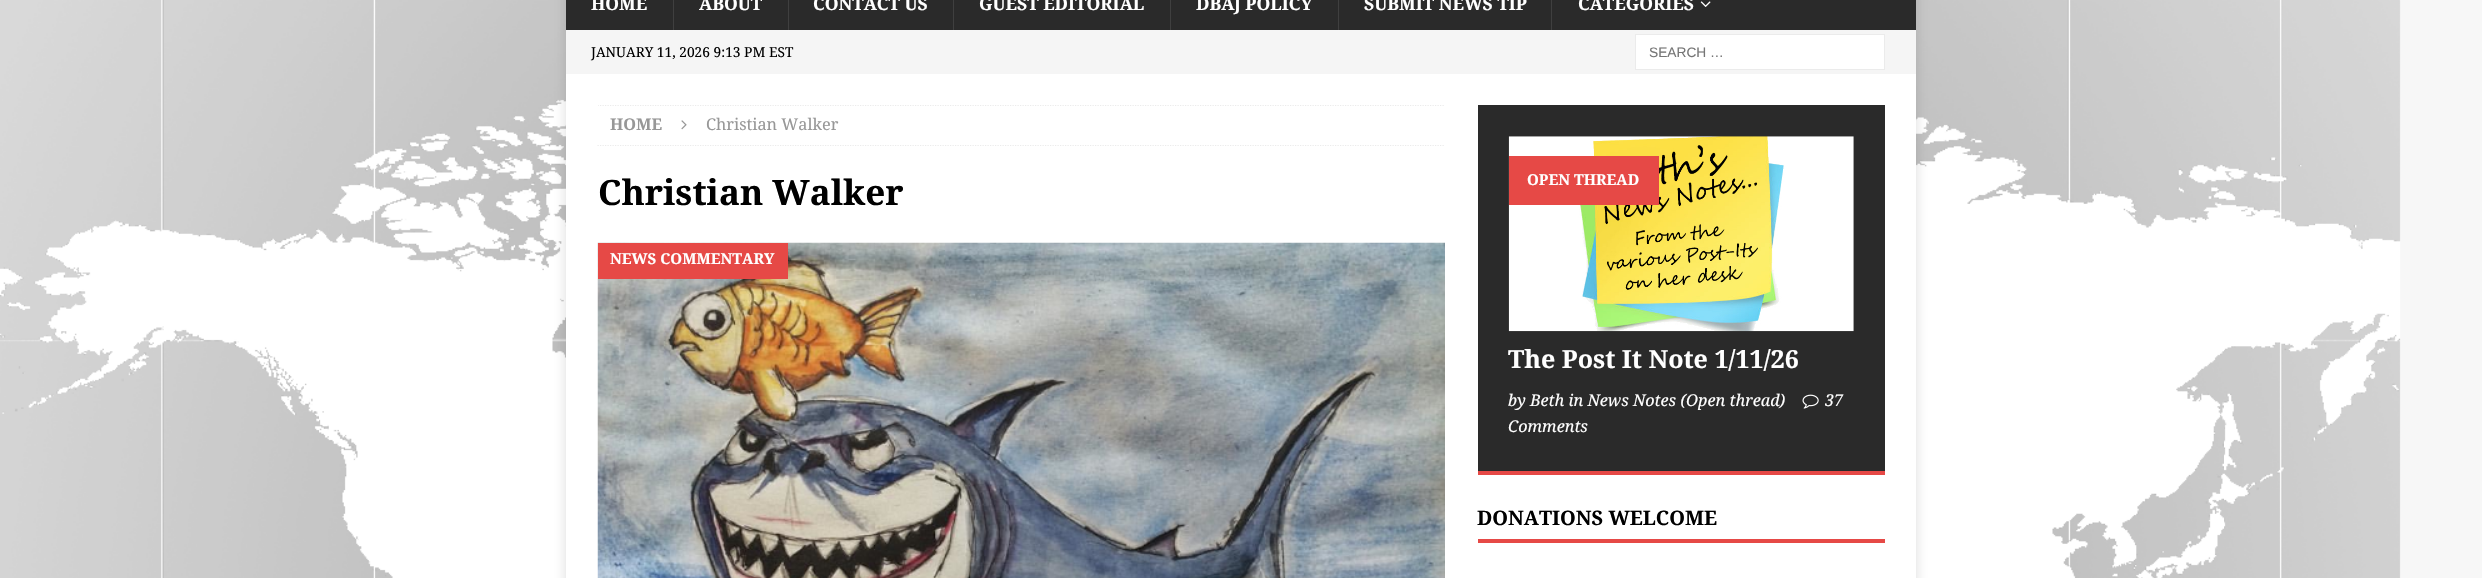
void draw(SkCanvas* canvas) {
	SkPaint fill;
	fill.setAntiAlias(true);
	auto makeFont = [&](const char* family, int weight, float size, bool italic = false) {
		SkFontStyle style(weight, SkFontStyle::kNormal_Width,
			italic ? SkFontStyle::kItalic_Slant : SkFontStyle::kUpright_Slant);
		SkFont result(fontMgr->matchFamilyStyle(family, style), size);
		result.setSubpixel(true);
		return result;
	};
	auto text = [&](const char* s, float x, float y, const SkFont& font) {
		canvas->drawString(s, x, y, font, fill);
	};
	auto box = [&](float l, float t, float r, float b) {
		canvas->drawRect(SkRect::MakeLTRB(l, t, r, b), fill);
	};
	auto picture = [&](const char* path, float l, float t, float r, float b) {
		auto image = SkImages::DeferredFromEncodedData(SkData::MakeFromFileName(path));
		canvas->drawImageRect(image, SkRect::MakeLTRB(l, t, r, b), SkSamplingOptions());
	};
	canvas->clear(0xFFF7F7F7);
	picture("image0.png", 0, 0, 2401, 578);
	fill.setColor(0x2B323232);
	fill.setMaskFilter(SkMaskFilter::MakeBlur(kNormal_SkBlurStyle, 6));
	canvas->drawRect(SkRect::MakeLTRB(566, -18, 1916, 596), fill);
	fill.setMaskFilter(nullptr);
	fill.setColor(0xFF2A2A2A);
	box(566, 0, 1916, 30);
	fill.setColor(0xFF3F3F3F);
	box(673, 0, 674, 30);
	box(788, 0, 789, 30);
	box(953, 0, 954, 30);
	box(1170, 0, 1171, 30);
	box(1338, 0, 1339, 30);
	box(1551, 0, 1552, 30);
	picture("image1.png", 1700, 1, 1711, 7);
	fill.setColor(0xFFF5F5F5);
	box(566, 30, 1916, 74);
	fill.setColor(0xFFFFFFFF);
	canvas->drawRect(SkRect::MakeLTRB(1635.5f, 34.5f, 1884.5f, 69.5f), fill);
	fill.setStyle(SkPaint::kStroke_Style);
	fill.setStrokeWidth(1);
	fill.setColor(0xFFEBEBEB);
	canvas->drawRect(SkRect::MakeLTRB(1635.5f, 34.5f, 1884.5f, 69.5f), fill);
	fill.setStyle(SkPaint::kFill_Style);
	fill.setColor(0xFFFFFFFF);
	box(566, 74, 1916, 578);
	canvas->save();
	canvas->clipRect(SkRect::MakeLTRB(598, 105, 1445, 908));
	fill.setStyle(SkPaint::kStroke_Style);
	fill.setStrokeWidth(1.2f);
	fill.setColor(0xFFEBEBEB);
	fill.setPathEffect(SkDashPathEffect::Make({{1.25f, 1.25f}}, 0));
	canvas->drawPath(SkPathBuilder().moveTo(597.5f, 105.5f).lineTo(1445, 105.5f).detach(), fill);
	fill.setPathEffect(nullptr);
	canvas->restore();
	fill.setPathEffect(SkDashPathEffect::Make({{1.25f, 1.25f}}, 0));
	canvas->drawPath(SkPathBuilder().moveTo(597.5f, 145.5f).lineTo(1445, 145.5f).detach(), fill);
	fill.setPathEffect(nullptr);
	picture("image2.png", 681, 120, 687, 130);
	picture("image3.png", 597, 242, 1445, 578);
	fill.setStyle(SkPaint::kFill_Style);
	fill.setColor(0xFFE64946);
	box(598, 243, 788, 279);
	fill.setColor(0xFF2A2A2A);
	box(1478, 105, 1885, 471);
	fill.setColor(0xFFE64946);
	box(1478, 471, 1885, 475);
	picture("image4.png", 1508, 136, 1854, 332);
	box(1509, 156, 1659, 205);
	picture("image5.png", 1802, 394, 1819, 409);
	box(1478, 539, 1885, 543);
	auto font1 = makeFont("Droid Serif", 700, 17.5f);
	fill.setColor(0xFFFFFFFF);
	text("HOME", 591, 10, font1);
	text("ABOUT", 699, 10, font1);
	text("CONTACT US", 813, 10, font1);
	text("GUEST EDITORIAL", 979, 10, font1);
	text("DBAJ POLICY", 1196, 10, font1);
	text("SUBMIT NEWS TIP", 1364, 10, font1);
	text("CATEGORIES", 1578, 10, font1);
	auto font2 = makeFont("Droid Serif", 400, 13.75f);
	fill.setColor(0xFF000000);
	text("JANUARY 11, 2026 9:13 PM EST", 591, 57, font2);
	auto font3 = makeFont("Liberation Sans", 400, 13.75f);
	fill.setColor(0xFF757575);
	text("SEARCH …", 1649, 57, font3);
	auto font4 = makeFont("Droid Serif", 700, 16.25f);
	fill.setColor(0xFF979797);
	text("HOME", 610, 130, font4);
	auto font5 = makeFont("Droid Serif", 400, 16.25f);
	text("Christian Walker", 706, 130, font5);
	auto font6 = makeFont("Droid Serif", 700, 35);
	fill.setColor(0xFF000000);
	text("Christian Walker", 598, 205, font6);
	auto font7 = makeFont("Droid Serif", 700, 15);
	fill.setColor(0xFFFFFFFF);
	text("NEWS COMMENTARY", 610, 264, font7);
	text("OPEN THREAD", 1527, 185, font7);
	auto font8 = makeFont("Droid Serif", 700, 25);
	text("The Post It Note 1/11/26", 1508, 368, font8);
	auto font9 = makeFont("Droid Serif", 400, 16.25f, true);
	text("by Beth in News Notes (Open thread)", 1508, 406, font9);
	text("37", 1825, 406, font9);
	text("Comments", 1508, 432, font9);
	auto font10 = makeFont("Droid Serif", 700, 20);
	fill.setColor(0xFF000000);
	text("DONATIONS WELCOME", 1477, 525, font10);
}
